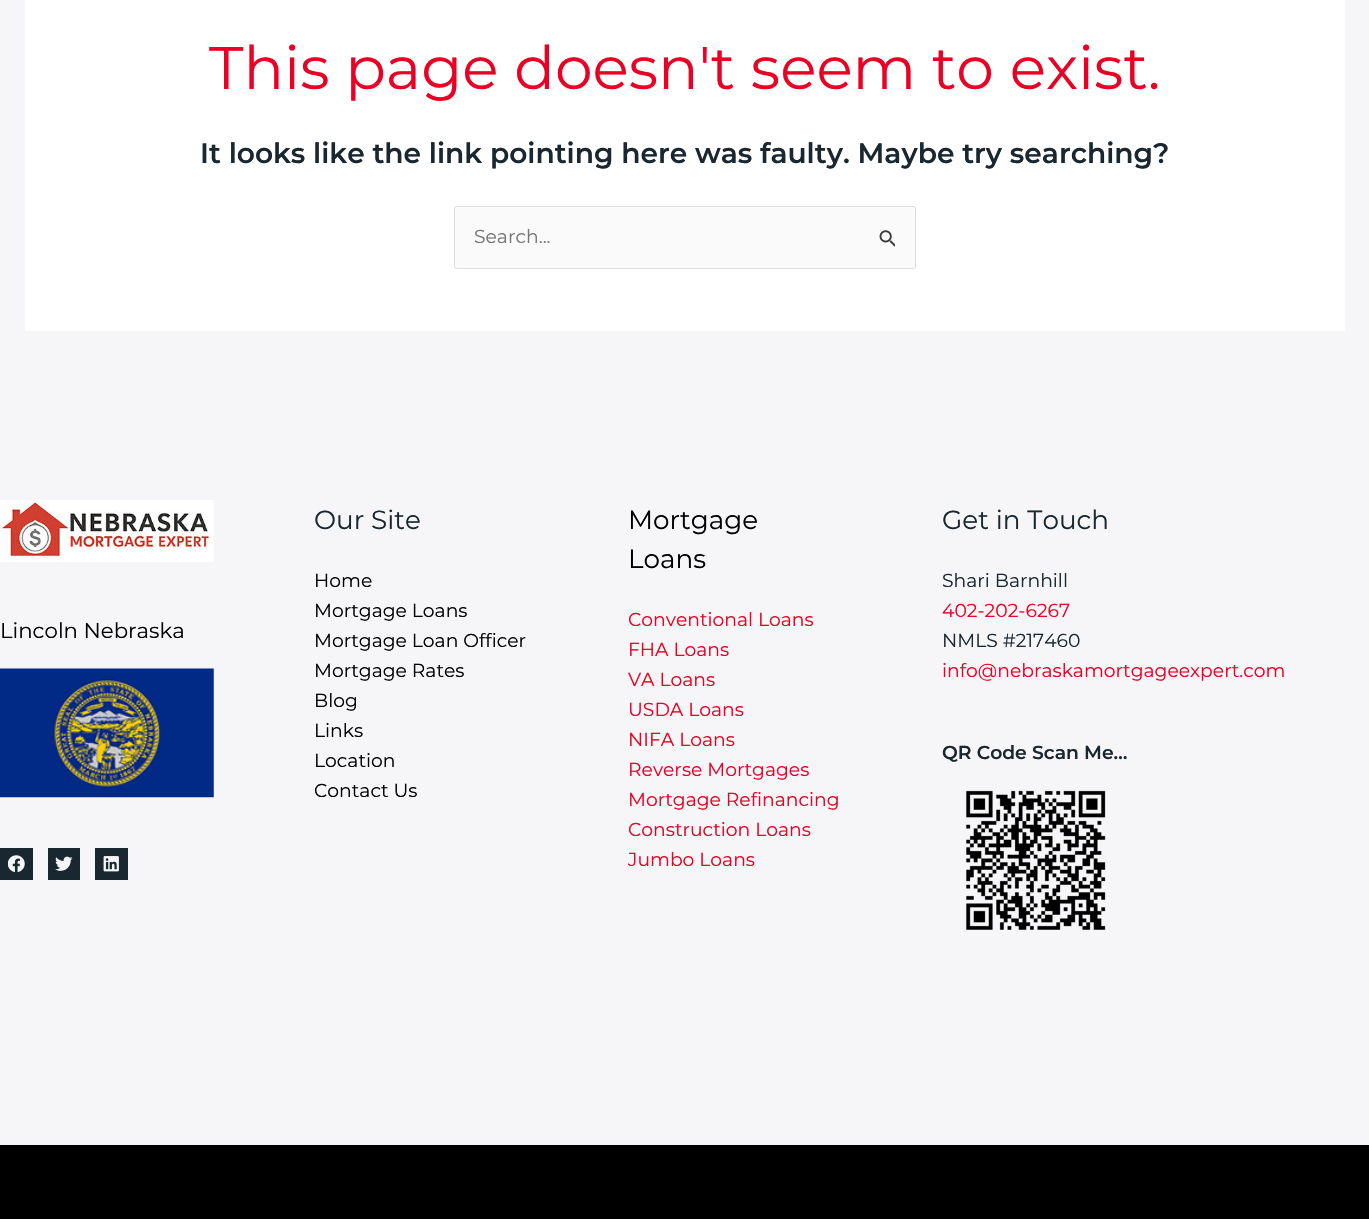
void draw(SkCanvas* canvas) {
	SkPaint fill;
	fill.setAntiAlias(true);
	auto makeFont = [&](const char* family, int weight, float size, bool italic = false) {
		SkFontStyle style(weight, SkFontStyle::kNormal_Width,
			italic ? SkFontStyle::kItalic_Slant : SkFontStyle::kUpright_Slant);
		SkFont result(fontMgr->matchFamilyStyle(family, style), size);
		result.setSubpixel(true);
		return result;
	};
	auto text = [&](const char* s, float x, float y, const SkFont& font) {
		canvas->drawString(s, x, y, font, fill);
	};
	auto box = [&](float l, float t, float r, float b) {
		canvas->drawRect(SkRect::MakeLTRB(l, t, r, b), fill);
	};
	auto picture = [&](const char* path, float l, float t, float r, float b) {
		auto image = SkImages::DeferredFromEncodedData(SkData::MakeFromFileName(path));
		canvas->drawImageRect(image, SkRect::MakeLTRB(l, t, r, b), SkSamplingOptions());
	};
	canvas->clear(0xFFF6F6F8);
	fill.setColor(0xFFFFFFFF);
	box(25, 0, 1345, 331);
	fill.setColor(0xFFFAFAFA);
	canvas->drawRoundRect(SkRect::MakeLTRB(454.5f, 206.5f, 915.5f, 268.5f), 2, 2, fill);
	fill.setStyle(SkPaint::kStroke_Style);
	fill.setStrokeWidth(1);
	fill.setColor(0xFFDDDDDD);
	canvas->drawRoundRect(SkRect::MakeLTRB(454.5f, 206.5f, 915.5f, 268.5f), 2, 2, fill);
	picture("image0.png", 879, 230, 895, 247);
	picture("image1.png", 0, 500, 214, 562);
	picture("image2.png", 0, 668, 214, 798);
	fill.setStyle(SkPaint::kFill_Style);
	fill.setColor(0xFF192730);
	box(0, 848, 33, 880);
	picture("image3.png", 8, 855, 25, 873);
	box(48, 848, 80, 880);
	picture("image4.png", 55, 856, 73, 871);
	box(95, 848, 128, 880);
	picture("image5.png", 103, 856, 119, 872);
	picture("image6.png", 966, 790, 1106, 930);
	fill.setColor(0xFF000000);
	box(0, 1145, 1369, 1219);
	auto font1 = makeFont("Montserrat", 400, 60);
	fill.setColor(0xFFEB0023);
	text("This page doesn't seem to exist.", 209, 89, font1);
	auto font2 = makeFont("Montserrat", 600, 28.1f);
	fill.setColor(0xFF192730);
	text("It looks like the link pointing here was faulty. Maybe try searching?", 200, 163, font2);
	auto font3 = makeFont("Montserrat", 400, 18.75f);
	fill.setColor(0xFF757575);
	text("Search...", 474, 243, font3);
	auto font4 = makeFont("Montserrat", 400, 21.25f);
	fill.setColor(0xFF000000);
	text("Lincoln Nebraska", 0, 638, font4);
	auto font5 = makeFont("Montserrat", 400, 26.25f);
	fill.setColor(0xFF192730);
	text("Our Site", 314, 529, font5);
	fill.setColor(0xFF000000);
	text("Home", 314, 587, font3);
	text("Mortgage Loans", 314, 617, font3);
	text("Mortgage Loan Officer", 314, 647, font3);
	text("Mortgage Rates", 314, 677, font3);
	text("Blog", 314, 707, font3);
	text("Links", 314, 737, font3);
	text("Location", 314, 767, font3);
	text("Contact Us", 314, 797, font3);
	text("Mortgage", 628, 529, font5);
	text("Loans", 628, 568, font5);
	fill.setColor(0xFFEB0023);
	text("Conventional Loans", 628, 626, font3);
	text("FHA Loans", 628, 656, font3);
	text("VA Loans", 628, 686, font3);
	text("USDA Loans", 628, 716, font3);
	text("NIFA Loans", 628, 746, font3);
	text("Reverse Mortgages", 628, 776, font3);
	text("Mortgage Refinancing", 628, 806, font3);
	text("Construction Loans", 628, 836, font3);
	text("Jumbo Loans", 628, 866, font3);
	fill.setColor(0xFF192730);
	text("Get in Touch", 942, 529, font5);
	text("Shari Barnhill", 942, 587, font3);
	fill.setColor(0xFFEB0023);
	text("402-202-6267", 942, 617, font3);
	fill.setColor(0xFF192730);
	text("NMLS #217460", 942, 647, font3);
	fill.setColor(0xFFEB0023);
	text("info@nebraskamortgageexpert.com", 942, 677, font3);
	auto font6 = makeFont("Montserrat", 600, 18.75f);
	fill.setColor(0xFF192730);
	text("QR Code Scan Me…", 942, 759, font6);
}
